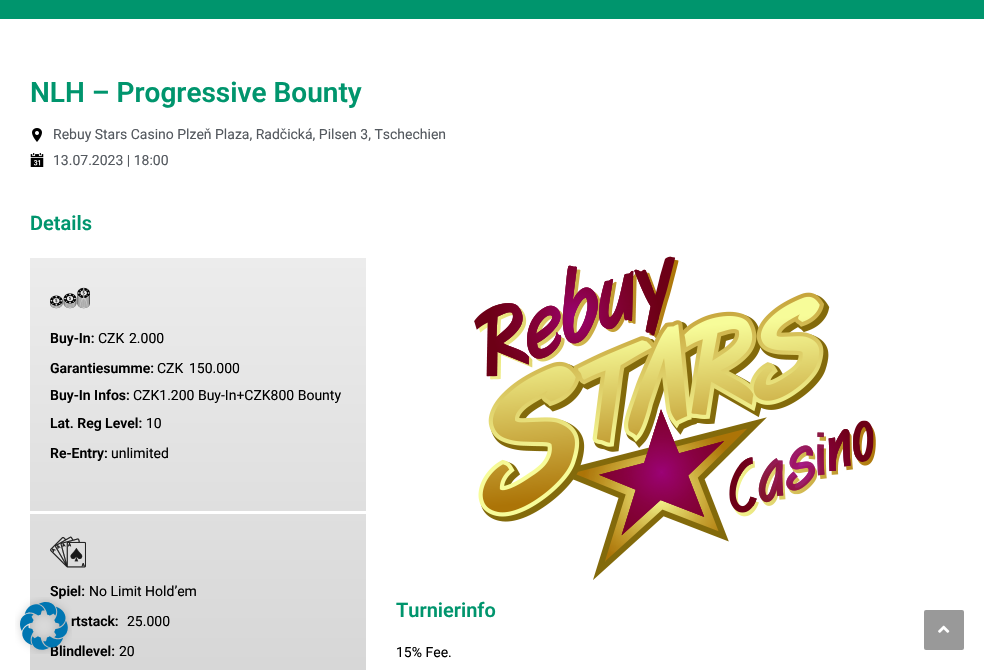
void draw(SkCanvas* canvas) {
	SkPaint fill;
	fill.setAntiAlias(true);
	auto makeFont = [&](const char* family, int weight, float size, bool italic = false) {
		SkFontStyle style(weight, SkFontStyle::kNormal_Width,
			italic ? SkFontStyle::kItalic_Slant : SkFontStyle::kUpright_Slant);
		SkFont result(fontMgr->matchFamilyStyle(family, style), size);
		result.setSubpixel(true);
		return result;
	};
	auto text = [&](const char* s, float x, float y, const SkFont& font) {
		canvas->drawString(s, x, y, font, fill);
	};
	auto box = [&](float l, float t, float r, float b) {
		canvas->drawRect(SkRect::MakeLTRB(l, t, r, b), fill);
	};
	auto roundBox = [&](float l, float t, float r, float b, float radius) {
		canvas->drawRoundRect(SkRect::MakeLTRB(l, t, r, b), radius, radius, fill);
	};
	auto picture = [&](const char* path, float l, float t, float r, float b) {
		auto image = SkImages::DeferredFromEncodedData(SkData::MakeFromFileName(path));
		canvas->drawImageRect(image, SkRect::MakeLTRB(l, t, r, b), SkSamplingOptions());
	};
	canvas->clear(0xFF00956D);
	fill.setColor(0xFFFFFFFF);
	box(0, 19, 984, 670);
	picture("image0.png", 32, 128, 42, 142);
	picture("image1.png", 30, 153, 44, 167);
	{
		const SkColor colors[] = {0xFFECECEC, 0xFFCCCCCC};
		const float stops[] = {0, 1};
		const SkPoint ends[] = {{198, 258}, {198, 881}};
		fill.setShader(SkGradientShader::MakeLinear(ends, colors, stops, 2, SkTileMode::kClamp));
		fill.setAlpha(255);
	}
	box(30, 258, 366, 670);
	picture("image2.png", 50, 287, 90, 309);
	fill.setShader(nullptr);
	fill.setColor(0xFFFFFFFF);
	box(30, 511, 366, 514);
	picture("image3.png", 50, 536, 86, 568);
	picture("image4.png", 474, 256, 876, 580);
	fill.setColor(0xFF999999);
	roundBox(924, 610, 964, 650, 2);
	picture("image6.png", 938, 625, 950, 633);
	auto font1 = makeFont("Roboto", 600, 28);
	fill.setColor(0xFF00956D);
	text("NLH – Progressive Bounty", 30, 102, font1);
	auto font2 = makeFont("Roboto", 400, 14);
	fill.setColor(0xFF54595F);
	text("Rebuy Stars Casino Plzeň Plaza, Radčická, Pilsen 3, Tschechien", 53, 139, font2);
	text("13.07.2023 | 18:00", 53, 165, font2);
	auto font3 = makeFont("Roboto", 600, 20);
	fill.setColor(0xFF00956D);
	text("Details", 30, 230, font3);
	auto font4 = makeFont("Roboto", 600, 14);
	fill.setColor(0xFF000000);
	text("Buy-In:", 50, 343, font4);
	text("CZK", 98, 343, font2);
	text("2.000", 129, 343, font2);
	text("Garantiesumme:", 50, 373, font4);
	text("CZK", 157, 373, font2);
	text("150.000", 189, 373, font2);
	text("Buy-In Infos:", 50, 400, font4);
	text("CZK1.200 Buy-In+CZK800 Bounty", 133, 400, font2);
	text("Lat. Reg Level:", 50, 428, font4);
	text("10", 146, 428, font2);
	text("Re-Entry:", 50, 458, font4);
	text("unlimited", 111, 458, font2);
	text("Spiel:", 50, 596, font4);
	text("No Limit Hold’em", 89, 596, font2);
	text("rtstack:", 71, 626, font4);
	text("25.000", 127, 626, font2);
	text("Blindlevel:", 50, 656, font4);
	text("20", 119, 656, font2);
	fill.setColor(0xFF00956D);
	text("Turnierinfo", 396, 617, font3);
	fill.setColor(0xFF000000);
	text("15% Fee.", 396, 657, font2);
	picture("image5.png", 15, 597, 72, 654);
}
